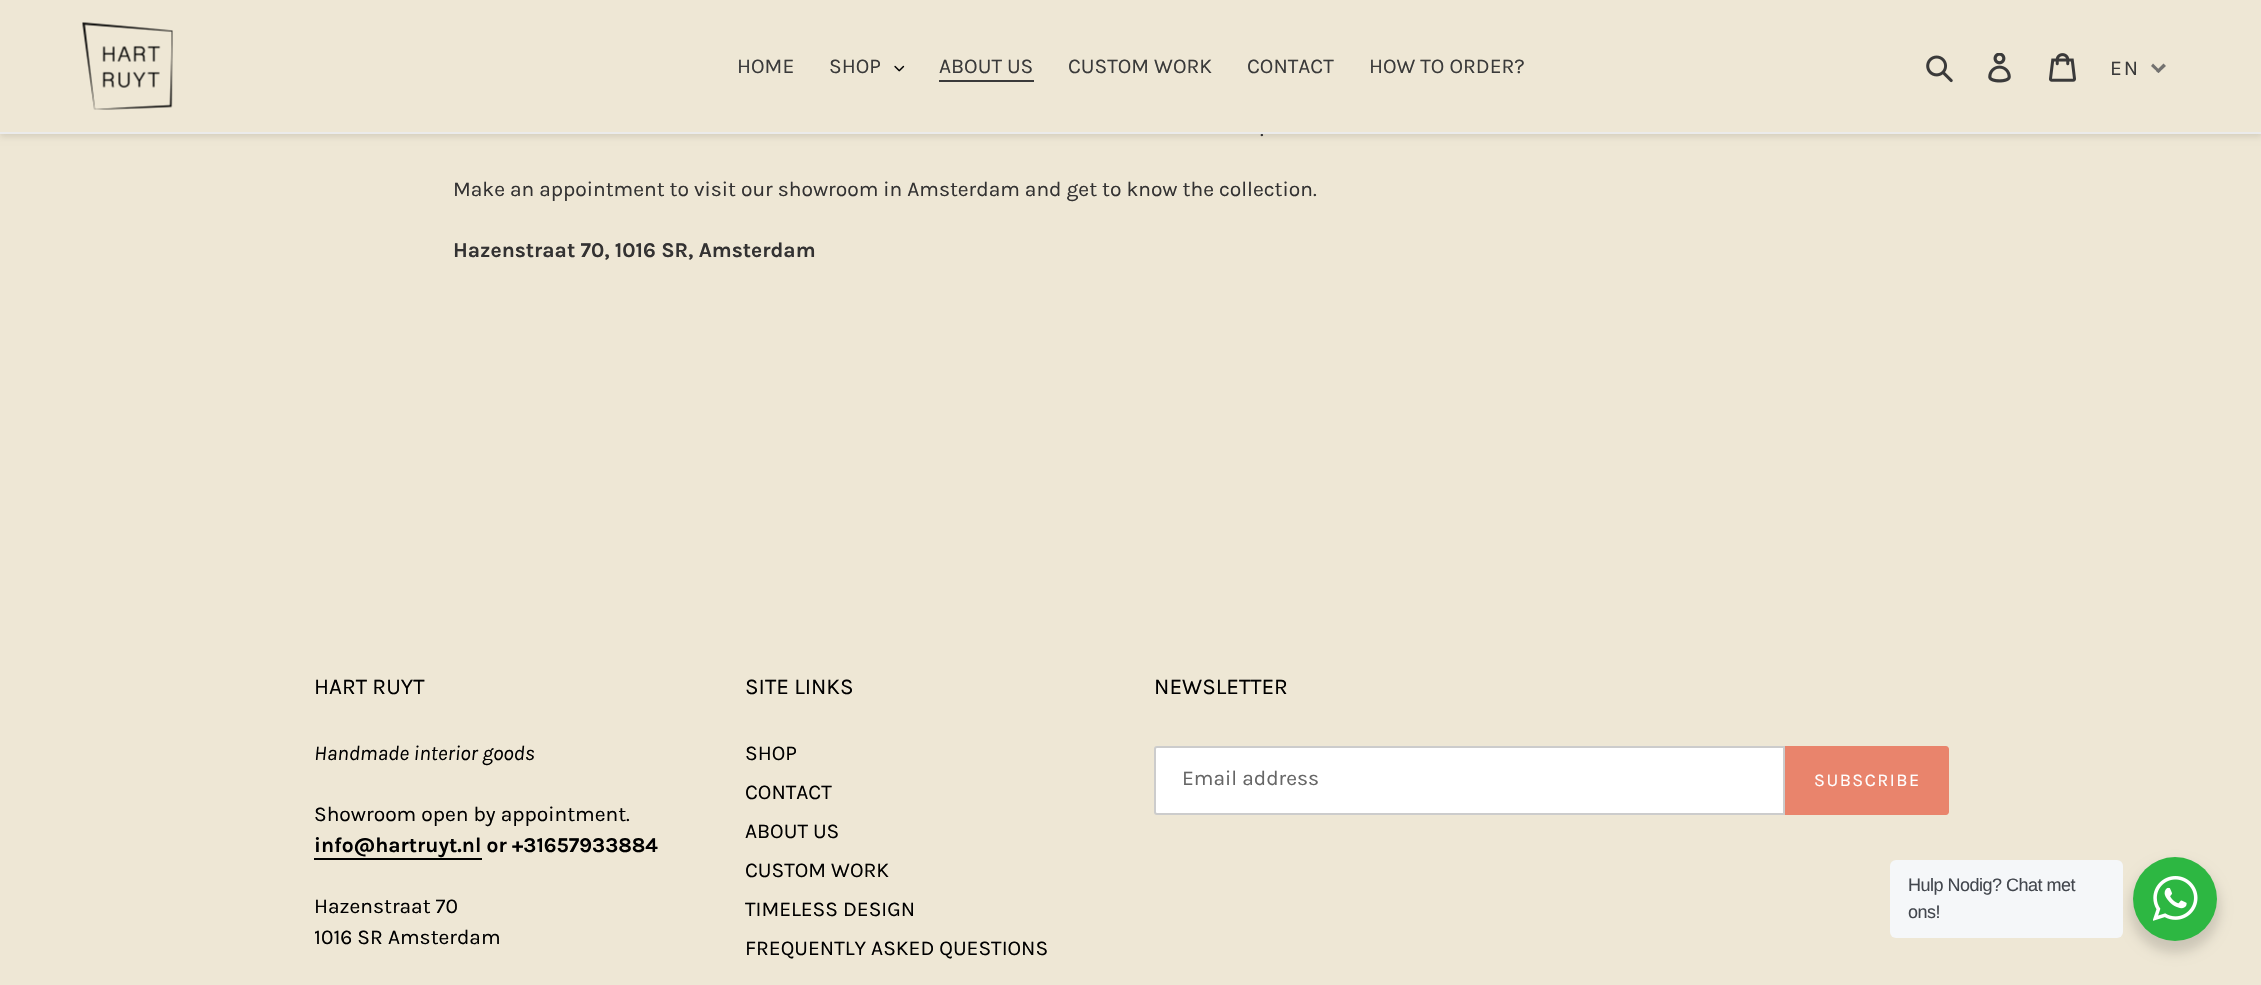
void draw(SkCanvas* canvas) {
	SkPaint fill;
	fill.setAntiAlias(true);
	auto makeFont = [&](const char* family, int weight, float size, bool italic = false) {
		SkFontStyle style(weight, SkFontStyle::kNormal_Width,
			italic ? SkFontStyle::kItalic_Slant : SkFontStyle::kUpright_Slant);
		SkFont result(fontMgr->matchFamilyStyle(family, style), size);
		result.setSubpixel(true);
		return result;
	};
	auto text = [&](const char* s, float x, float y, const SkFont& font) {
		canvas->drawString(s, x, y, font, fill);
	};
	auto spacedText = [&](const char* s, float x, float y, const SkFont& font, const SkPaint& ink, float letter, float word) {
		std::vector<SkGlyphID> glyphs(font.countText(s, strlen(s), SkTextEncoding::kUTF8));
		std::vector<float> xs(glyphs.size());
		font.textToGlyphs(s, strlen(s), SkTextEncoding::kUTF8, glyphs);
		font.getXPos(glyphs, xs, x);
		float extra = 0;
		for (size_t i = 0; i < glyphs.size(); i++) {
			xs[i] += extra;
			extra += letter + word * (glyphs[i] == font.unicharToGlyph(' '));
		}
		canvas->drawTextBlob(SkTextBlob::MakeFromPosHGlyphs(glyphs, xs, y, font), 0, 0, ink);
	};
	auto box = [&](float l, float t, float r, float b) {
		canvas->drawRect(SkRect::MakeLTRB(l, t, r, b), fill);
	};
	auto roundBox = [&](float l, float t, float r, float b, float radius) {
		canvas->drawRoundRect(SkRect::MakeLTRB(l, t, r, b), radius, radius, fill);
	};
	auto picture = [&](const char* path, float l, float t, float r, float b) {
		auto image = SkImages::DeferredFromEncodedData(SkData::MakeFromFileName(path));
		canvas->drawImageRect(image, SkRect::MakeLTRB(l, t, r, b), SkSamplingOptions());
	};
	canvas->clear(0xFFEEE7D5);
	fill.setColor(0x1A000000);
	fill.setMaskFilter(SkMaskFilter::MakeBlur(kNormal_SkBlurStyle, 3));
	canvas->drawRect(SkRect::MakeLTRB(0, 3, 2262, 137), fill);
	fill.setMaskFilter(nullptr);
	fill.setColor(0xFFEEE7D5);
	box(0, 0, 2261, 132);
	picture("image0.png", 82, 22, 173, 110);
	picture("image1.png", 894, 65, 905, 72);
	fill.setColor(0xFF3A3A3A);
	box(939, 80, 1034, 82);
	picture("image2.png", 1926, 55, 1953, 83);
	picture("image3.png", 1988, 53, 2011, 83);
	picture("image4.png", 2049, 53, 2076, 82);
	fill.setColor(0xFF737270);
	canvas->drawPath(SkPathBuilder().moveTo(2163.5f, 63.5f).lineTo(2166, 66).lineTo(2158.5f, 73).lineTo(2156, 71).close().detach(), fill);
	canvas->drawPath(SkPathBuilder().moveTo(2153, 63.5f).lineTo(2160.5f, 71).lineTo(2158.5f, 73).lineTo(2151, 66).close().detach(), fill);
	fill.setColor(0xFF000000);
	box(314, 858, 482, 860);
	fill.setColor(0xFFFFFFFF);
	canvas->drawPath(SkPathBuilder().moveTo(1157, 747).lineTo(1784, 747).lineTo(1784, 814).lineTo(1157, 814).cubicTo(1156, 814, 1155, 813, 1155, 812).lineTo(1155, 749).cubicTo(1155, 748, 1156, 747, 1157, 747).close().detach(), fill);
	fill.setStyle(SkPaint::kStroke_Style);
	fill.setStrokeWidth(2);
	fill.setColor(0xFFCCCCCC);
	canvas->drawPath(SkPathBuilder().moveTo(1157, 747).lineTo(1784, 747).lineTo(1784, 814).lineTo(1157, 814).cubicTo(1156, 814, 1155, 813, 1155, 812).lineTo(1155, 749).cubicTo(1155, 748, 1156, 747, 1157, 747).close().detach(), fill);
	fill.setStyle(SkPaint::kFill_Style);
	fill.setColor(0xFFE9846C);
	canvas->drawPath(SkPathBuilder().moveTo(1785, 746).lineTo(1946, 746).cubicTo(1947.5f, 746, 1949, 747.5f, 1949, 749).lineTo(1949, 812).cubicTo(1949, 813.5f, 1947.5f, 815, 1946, 815).lineTo(1785, 815).close().detach(), fill);
	fill.setColor(0x24000000);
	fill.setMaskFilter(SkMaskFilter::MakeBlur(kNormal_SkBlurStyle, 6));
	canvas->drawRoundRect(SkRect::MakeLTRB(2130, 863, 2220, 953), 45, 45, fill);
	fill.setMaskFilter(nullptr);
	fill.setColor(0xFFF5F7F9);
	roundBox(1890, 860, 2123, 938, 6);
	fill.setColor(0xFF2DB742);
	canvas->drawCircle(2175, 899, 42, fill);
	picture("image5.png", 2153, 876, 2198, 921);
	auto font1 = makeFont("Karla", 400, 21);
	fill.setColor(0xFF3A3A3A);
	text("HOME", 737, 73, font1);
	text("SHOP", 829, 73, font1);
	text("ABOUT US", 939, 73, font1);
	text("CUSTOM WORK", 1068, 73, font1);
	text("CONTACT", 1247, 73, font1);
	text("HOW TO ORDER?", 1369, 73, font1);
	spacedText("EN", 2110, 75, font1, fill, 2, 0);
	fill.setColor(0xFF333232);
	text(".", 1260, 136, font1);
	fill.setColor(0xFFEBEBEB);
	box(0, 132, 2261, 134);
	fill.setColor(0xFF333232);
	text("Make an appointment to visit our showroom in Amsterdam and get to know the collection.", 453, 196, font1);
	auto font2 = makeFont("Karla", 700, 21);
	text("Hazenstraat 70, 1016 SR, Amsterdam", 453, 257, font2);
	auto font3 = makeFont("Karla", 400, 22.5f);
	fill.setColor(0xFF000000);
	text("HART RUYT", 314, 694, font3);
	auto font4 = makeFont("Karla", 400, 21, true);
	text("Handmade interior goods", 314, 760, font4);
	text("Showroom open by appointment.", 314, 821, font1);
	text("info@hartruyt.nl or +31657933884", 314, 852, font2);
	text("Hazenstraat 70", 314, 913, font1);
	text("1016 SR Amsterdam", 314, 944, font1);
	text("SITE LINKS", 745, 694, font3);
	text("SHOP", 745, 760, font1);
	text("CONTACT", 745, 799, font1);
	text("ABOUT US", 745, 838, font1);
	text("CUSTOM WORK", 745, 877, font1);
	text("TIMELESS DESIGN", 745, 916, font1);
	text("FREQUENTLY ASKED QUESTIONS", 745, 955, font1);
	text("NEWSLETTER", 1154, 694, font3);
	fill.setColor(0xFF666666);
	text("Email address", 1182, 785, font1);
	auto font5 = makeFont("Karla", 400, 18);
	fill.setColor(0xFFFFFFFF);
	spacedText("SUBSCRIBE", 1814, 786, font5, fill, 1.5f, 0);
	auto font6 = makeFont("Liberation Sans", 400, 18);
	fill.setColor(0xFF43474E);
	spacedText("Hulp Nodig? Chat met", 1908, 891, font6, fill, -0.5f, 0);
	spacedText("ons!", 1908, 918, font6, fill, -0.5f, 0);
}
